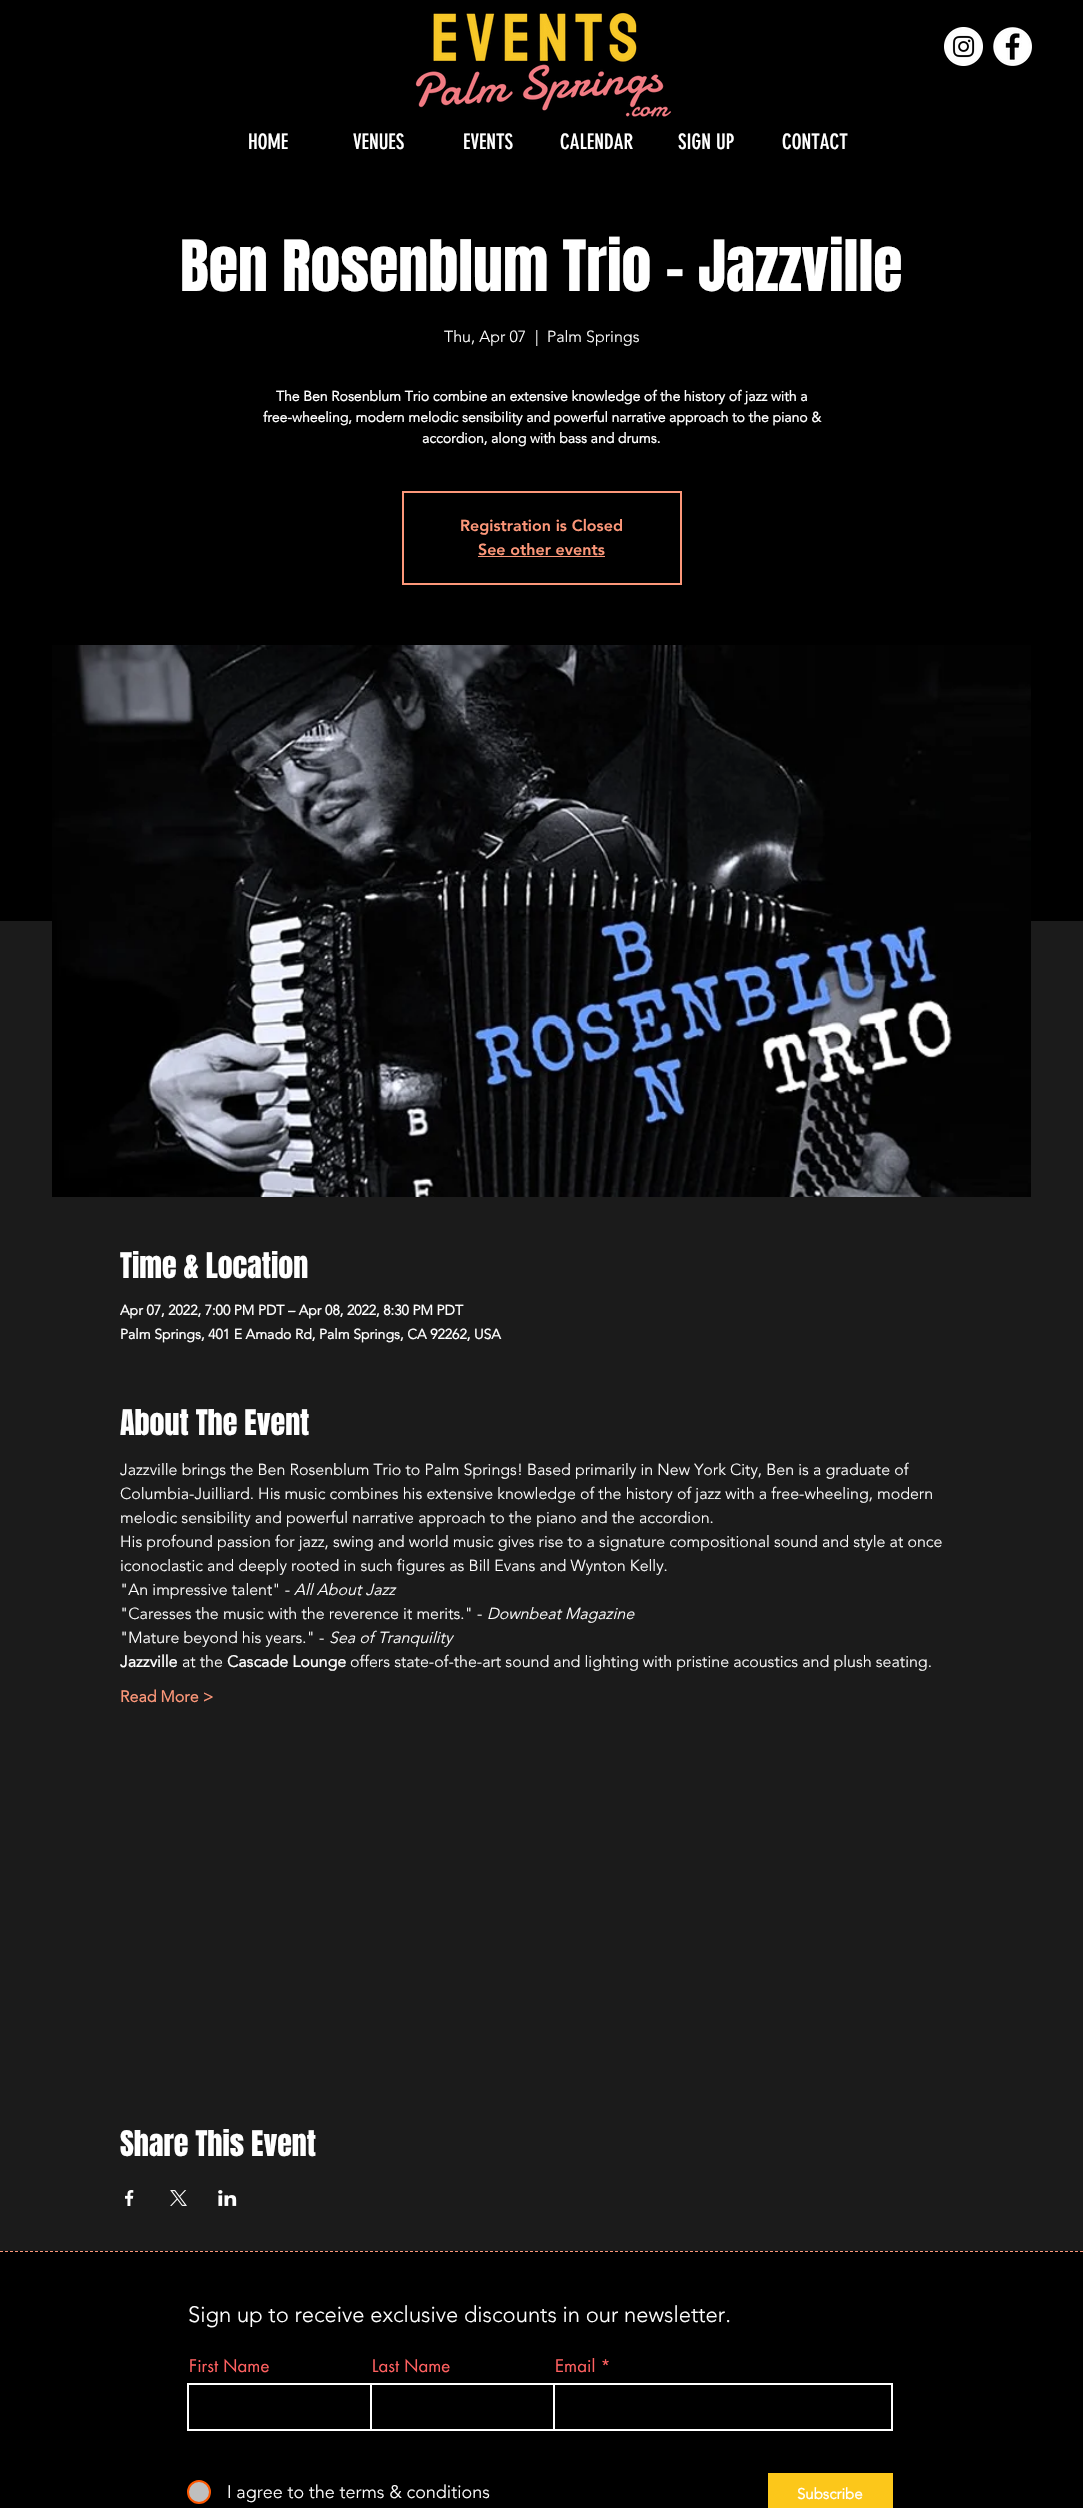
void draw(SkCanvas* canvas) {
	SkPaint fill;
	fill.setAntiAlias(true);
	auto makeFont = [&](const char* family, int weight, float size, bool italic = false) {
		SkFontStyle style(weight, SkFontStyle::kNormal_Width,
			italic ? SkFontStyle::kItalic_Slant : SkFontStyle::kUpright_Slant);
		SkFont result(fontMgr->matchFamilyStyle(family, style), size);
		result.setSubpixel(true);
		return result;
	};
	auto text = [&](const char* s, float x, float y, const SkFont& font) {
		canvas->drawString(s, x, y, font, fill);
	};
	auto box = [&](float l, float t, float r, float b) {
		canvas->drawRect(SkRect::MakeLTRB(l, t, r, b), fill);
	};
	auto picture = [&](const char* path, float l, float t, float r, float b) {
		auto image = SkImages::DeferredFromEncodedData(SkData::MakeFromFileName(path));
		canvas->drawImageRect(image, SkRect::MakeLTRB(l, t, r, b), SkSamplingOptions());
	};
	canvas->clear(0xFF000000);
	picture("image0.png", 415, 12, 672, 117);
	picture("image1.png", 944, 27, 983, 66);
	picture("image2.png", 993, 27, 1032, 66);
	fill.setStyle(SkPaint::kStroke_Style);
	fill.setStrokeWidth(2);
	fill.setColor(0xFFFC9779);
	canvas->drawRect(SkRect::MakeLTRB(403, 492, 681, 584), fill);
	fill.setStyle(SkPaint::kFill_Style);
	box(478, 556, 605, 557);
	fill.setColor(0xFF1B1B1B);
	box(0, 921, 1083, 2251);
	picture("image3.png", 52, 645, 1031, 1197);
	picture("image4.png", 125, 2190, 134, 2206);
	picture("image5.png", 170, 2190, 187, 2206);
	picture("image6.png", 218, 2190, 237, 2206);
	fill.setStyle(SkPaint::kStroke_Style);
	fill.setStrokeWidth(1);
	fill.setColor(0xFFFC9779);
	fill.setPathEffect(SkDashPathEffect::Make({{3, 2}}, 0));
	canvas->drawPath(SkPathBuilder().moveTo(0, 2251.5f).lineTo(1083, 2251.5f).detach(), fill);
	fill.setPathEffect(nullptr);
	fill.setStrokeWidth(2);
	fill.setColor(0xFFFFFFFF);
	canvas->drawRect(SkRect::MakeLTRB(188, 2384, 371, 2430), fill);
	canvas->drawRect(SkRect::MakeLTRB(371, 2384, 554, 2430), fill);
	canvas->drawRect(SkRect::MakeLTRB(554, 2384, 892, 2430), fill);
	fill.setStyle(SkPaint::kFill_Style);
	fill.setColor(0xFFBFBFBF);
	canvas->drawCircle(199, 2492, 11, fill);
	fill.setStyle(SkPaint::kStroke_Style);
	fill.setColor(0xFFFF5700);
	canvas->drawCircle(199, 2492, 11, fill);
	fill.setStyle(SkPaint::kFill_Style);
	fill.setColor(0xFFFCC71A);
	box(768, 2473, 893, 2508);
	auto font1 = makeFont("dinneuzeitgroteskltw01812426", 400, 21);
	fill.setColor(0xFFFFFFFF);
	text("HOME", 248, 149, font1);
	text("VENUES", 353, 149, font1);
	text("EVENTS", 463, 149, font1);
	text("CALENDAR", 560, 149, font1);
	text("SIGN UP", 678, 149, font1);
	text("CONTACT", 782, 149, font1);
	auto font2 = makeFont("Anton", 400, 60);
	text("Ben Rosenblum Trio - Jazzville", 180, 291, font2);
	auto font3 = makeFont("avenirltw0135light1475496", 300, 16);
	text("Thu, Apr 07", 444, 342, font3);
	text("|", 535, 342, font3);
	text("Palm Springs", 547, 342, font3);
	auto font4 = makeFont("avenirltw0135light1475496", 700, 14);
	text("The Ben Rosenblum Trio combine an extensive knowledge of the history of jazz with a", 276, 401, font4);
	text("free-wheeling, modern melodic sensibility and powerful narrative approach to the piano &", 263, 422, font4);
	text("accordion, along with bass and drums.", 422, 443, font4);
	auto font5 = makeFont("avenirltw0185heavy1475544", 900, 16);
	fill.setColor(0xFFFC9779);
	text("Registration is Closed", 460, 531, font5);
	text("See other events", 478, 555, font5);
	auto font6 = makeFont("Anton", 400, 30);
	fill.setColor(0xFFFFFFFF);
	text("Time & Location", 120, 1278, font6);
	text("Apr 07, 2022, 7:00 PM PDT – Apr 08, 2022, 8:30 PM PDT", 120, 1315, font4);
	text("Palm Springs, 401 E Amado Rd, Palm Springs, CA 92262, USA", 120, 1339, font4);
	text("About The Event", 120, 1435, font6);
	text("Jazzville brings the Ben Rosenblum Trio to Palm Springs! Based primarily in New York City, Ben is a graduate of", 120, 1475, font3);
	text("Columbia-Juilliard. His music combines his extensive knowledge of the history of jazz with a free-wheeling, modern", 120, 1499, font3);
	text("melodic sensibility and powerful narrative approach to the piano and the accordion.", 120, 1523, font3);
	text("His profound passion for jazz, swing and world music gives rise to a signature compositional sound and style at once", 120, 1547, font3);
	text("iconoclastic and deeply rooted in such figures as Bill Evans and Wynton Kelly.", 120, 1571, font3);
	text("\"An impressive talent\" -", 120, 1595, font3);
	auto font7 = makeFont("avenirltw0135light1475496", 300, 16, true);
	text("All About Jazz", 294, 1595, font7);
	text("\"Caresses the music with the reverence it merits.\" -", 120, 1619, font3);
	text("Downbeat Magazine", 487, 1619, font7);
	text("\"Mature beyond his years.\" -", 120, 1643, font3);
	text("Sea of Tranquility", 329, 1643, font7);
	auto font8 = makeFont("avenirltw0135light1475496", 700, 16);
	text("Jazzville", 120, 1667, font8);
	text("at the", 182, 1667, font3);
	text("Cascade Lounge", 227, 1667, font8);
	text("offers state-of-the-art sound and lighting with pristine acoustics and plush seating.", 350, 1667, font3);
	fill.setColor(0xFFFC9779);
	text("Read More >", 120, 1702, font8);
	fill.setColor(0xFFFFFFFF);
	text("Share This Event", 120, 2156, font6);
	auto font9 = makeFont("avenirltw0135light1475496", 300, 22);
	text("Sign up to receive exclusive discounts in our newsletter.", 188, 2322, font9);
	auto font10 = makeFont("futura", 400, 17);
	fill.setColor(0xFFFE6060);
	text("First Name", 189, 2372, font10);
	text("Last Name", 372, 2372, font10);
	text("Email *", 555, 2372, font10);
	auto font11 = makeFont("avenirltw0135light1475496", 300, 18);
	fill.setColor(0xFFFFFFFF);
	text("I agree to the terms & conditions", 227, 2498, font11);
	auto font12 = makeFont("avenirltw0135light1475496", 700, 15);
	text("Subscribe", 797, 2499, font12);
}
